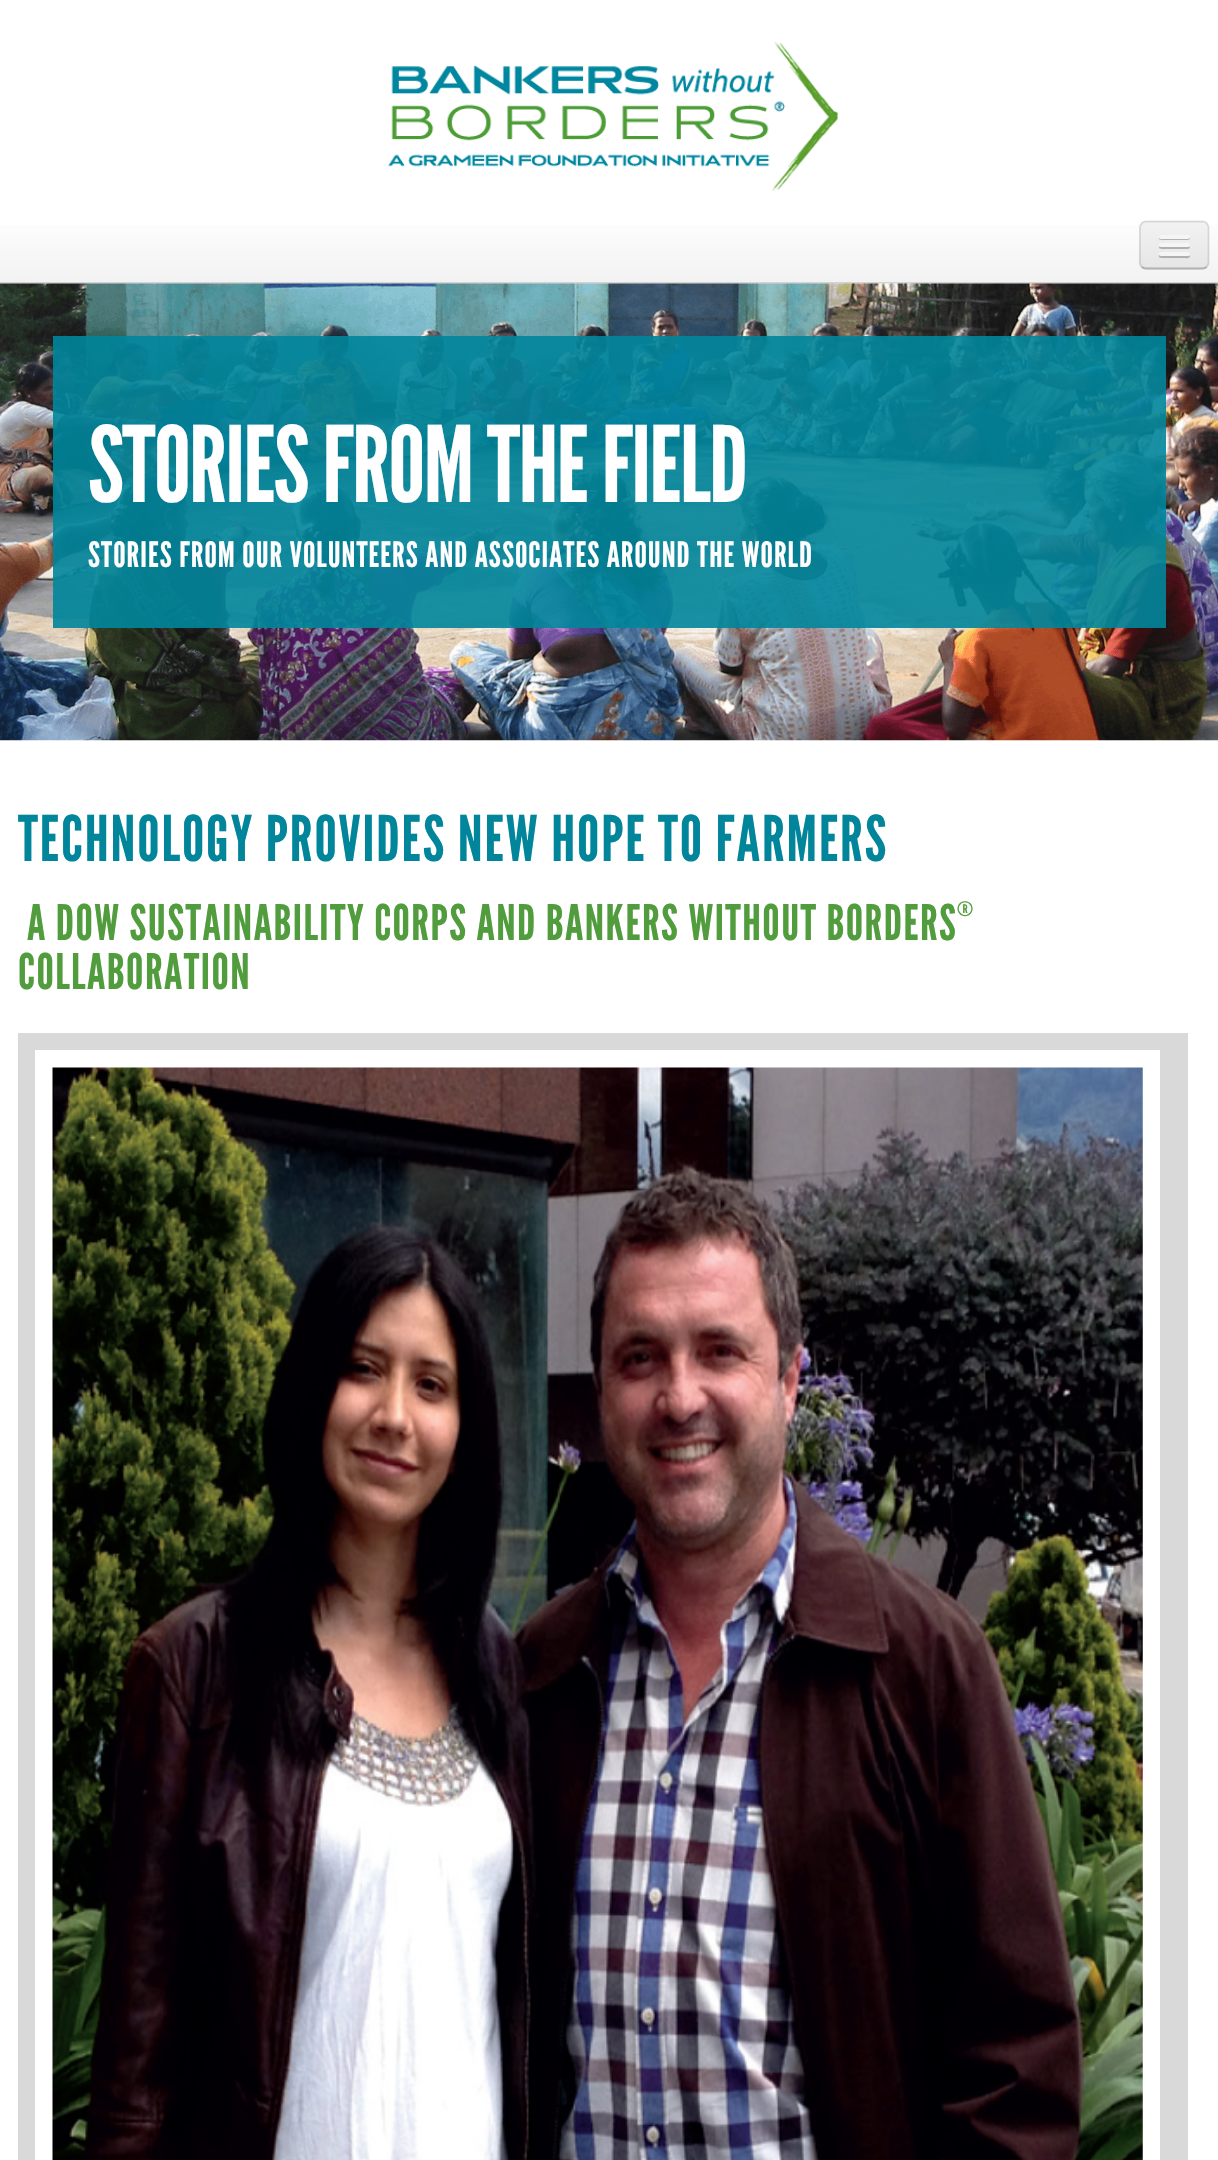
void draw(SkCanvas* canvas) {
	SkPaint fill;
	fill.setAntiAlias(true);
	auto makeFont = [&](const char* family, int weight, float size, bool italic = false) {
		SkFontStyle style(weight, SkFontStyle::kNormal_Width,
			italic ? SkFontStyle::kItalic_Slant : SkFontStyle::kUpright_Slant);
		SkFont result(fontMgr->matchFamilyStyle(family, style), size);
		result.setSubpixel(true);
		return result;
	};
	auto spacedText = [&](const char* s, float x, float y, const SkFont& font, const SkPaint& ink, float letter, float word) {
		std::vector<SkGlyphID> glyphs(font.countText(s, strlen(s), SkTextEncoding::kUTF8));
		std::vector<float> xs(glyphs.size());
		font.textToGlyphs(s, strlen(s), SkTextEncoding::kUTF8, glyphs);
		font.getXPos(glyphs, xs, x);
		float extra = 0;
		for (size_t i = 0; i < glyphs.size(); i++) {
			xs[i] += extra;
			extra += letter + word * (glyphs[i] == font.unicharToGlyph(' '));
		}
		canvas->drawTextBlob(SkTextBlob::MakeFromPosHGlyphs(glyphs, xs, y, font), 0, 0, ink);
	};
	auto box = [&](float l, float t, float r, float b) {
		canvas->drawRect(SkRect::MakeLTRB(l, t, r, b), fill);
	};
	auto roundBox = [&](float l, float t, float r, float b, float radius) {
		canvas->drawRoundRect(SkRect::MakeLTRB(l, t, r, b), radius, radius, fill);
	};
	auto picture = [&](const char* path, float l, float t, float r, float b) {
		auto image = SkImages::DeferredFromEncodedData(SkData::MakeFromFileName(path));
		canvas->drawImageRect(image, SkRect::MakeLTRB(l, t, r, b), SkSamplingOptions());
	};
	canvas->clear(0xFFFFFFFF);
	picture("image0.png", 388, 42, 839, 191);
	{
		const SkColor colors[] = {0xFFFFFFFF, 0xFFF2F2F2};
		const float stops[] = {0, 1};
		const SkPoint ends[] = {{609, 212}, {609, 282}};
		fill.setShader(SkGradientShader::MakeLinear(ends, colors, stops, 2, SkTileMode::kClamp));
		fill.setAlpha(255);
	}
	box(0, 225, 1218, 282);
	fill.setShader(nullptr);
	fill.setColor(0xFFD4D4D4);
	box(0, 282, 1218, 284);
	fill.setColor(0xFFEDEDED);
	roundBox(1139, 221, 1209, 270, 7);
	canvas->save();
	canvas->clipPath(SkPathBuilder().moveTo(1146, 221).lineTo(1202, 221).cubicTo(1206, 221, 1209, 224, 1209, 228).lineTo(1209, 263).cubicTo(1209, 267, 1206, 270, 1202, 270).lineTo(1146, 270).cubicTo(1142, 270, 1139, 267, 1139, 263).lineTo(1139, 228).cubicTo(1139, 224, 1142, 221, 1146, 221).close().detach(), true);
	{
		const SkColor colors[] = {0xFFF2F2F2, 0xFFE6E6E6};
		const float stops[] = {0, 1};
		const SkPoint ends[] = {{1174, 222}, {1174, 268}};
		fill.setShader(SkGradientShader::MakeLinear(ends, colors, stops, 2, SkTileMode::kClamp));
		fill.setAlpha(255);
	}
	box(1139, 222, 1209, 268);
	canvas->restore();
	fill.setStyle(SkPaint::kStroke_Style);
	fill.setStrokeWidth(1.8f);
	fill.setShader(nullptr);
	fill.setColor(0x40000000);
	canvas->drawPath(SkPathBuilder().moveTo(1206.5f, 267).cubicTo(1205.5f, 268, 1204, 268.5f, 1202, 268.5f).lineTo(1146, 268.5f).cubicTo(1144.5f, 268.5f, 1143, 268, 1142, 267).detach(), fill);
	fill.setColor(0x1A000000);
	canvas->drawPath(SkPathBuilder().moveTo(1142, 267).cubicTo(1141, 265.5f, 1140, 264, 1140, 262.5f).lineTo(1140, 227.5f).cubicTo(1140, 226, 1141, 224.5f, 1142, 223).cubicTo(1143, 222, 1144.5f, 221.5f, 1146, 221.5f).lineTo(1202, 221.5f).cubicTo(1204, 221.5f, 1205.5f, 222, 1206.5f, 223).cubicTo(1207.5f, 224.5f, 1208.5f, 226, 1208.5f, 227.5f).lineTo(1208.5f, 262.5f).cubicTo(1208.5f, 264, 1207.5f, 265.5f, 1206.5f, 267).detach(), fill);
	fill.setStyle(SkPaint::kFill_Style);
	fill.setColor(0xFFB2B2B2);
	canvas->drawPath(SkPathBuilder().moveTo(1159, 237.5f).cubicTo(1158, 241, 1164.5f, 240, 1165.5f, 240).lineTo(1183.5f, 240).cubicTo(1184.5f, 240, 1191.5f, 241, 1190, 237).lineTo(1188.5f, 238).lineTo(1160, 238).close().detach(), fill);
	fill.setColor(0xFFF5F5F5);
	roundBox(1159, 235, 1190, 239, 2);
	fill.setColor(0xFFB0B0B0);
	canvas->drawPath(SkPathBuilder().moveTo(1159, 246.5f).cubicTo(1158, 250, 1164.5f, 249, 1165.5f, 249).lineTo(1183.5f, 249).cubicTo(1184, 249, 1192, 250, 1189.5f, 246).lineTo(1188.5f, 246.5f).lineTo(1160, 246.5f).close().detach(), fill);
	fill.setColor(0xFFF5F5F5);
	roundBox(1159, 243, 1190, 247, 2);
	fill.setColor(0xFFAFAFAF);
	canvas->drawPath(SkPathBuilder().moveTo(1159, 255).cubicTo(1157.5f, 259, 1164.5f, 258, 1165.5f, 258).lineTo(1183.5f, 258).cubicTo(1184.5f, 258, 1189.5f, 259, 1190, 256.5f).lineTo(1189.5f, 255).lineTo(1188.5f, 255.5f).cubicTo(1186, 256, 1160, 256, 1159, 255).close().detach(), fill);
	fill.setColor(0xFFF5F5F5);
	roundBox(1159, 252, 1190, 256, 2);
	picture("image1.png", 0, 283, 1218, 741);
	fill.setColor(0xE600859B);
	box(53, 336, 1166, 628);
	fill.setColor(0xFFD9D9D9);
	box(18, 1033, 1188, 2160);
	fill.setColor(0xFFFFFFFF);
	box(35, 1050, 1160, 2160);
	picture("image2.png", 52, 1067, 1143, 2160);
	auto font1 = makeFont("League Gothic", 400, 105);
	spacedText("STORIES FROM THE FIELD", 88, 502, font1, fill, -1.75f, 0);
	auto font2 = makeFont("League Gothic", 400, 35);
	spacedText("STORIES FROM OUR VOLUNTEERS AND ASSOCIATES AROUND THE WORLD", 88, 567, font2, fill, 1.05f, 0);
	auto font3 = makeFont("League Gothic", 400, 63);
	fill.setColor(0xFF00859B);
	spacedText("TECHNOLOGY PROVIDES NEW HOPE TO FARMERS", 18, 861, font3, fill, 1.9f, 0);
	auto font4 = makeFont("League Gothic", 400, 49);
	fill.setColor(0xFF519C3D);
	spacedText("A DOW SUSTAINABILITY CORPS AND BANKERS WITHOUT BORDERS", 27, 940, font4, fill, 1.47f, 0);
	auto font5 = makeFont("League Gothic", 400, 20);
	spacedText("®", 957, 916, font5, fill, 1.47f, 0);
	spacedText("COLLABORATION", 18, 989, font4, fill, 1.47f, 0);
}
